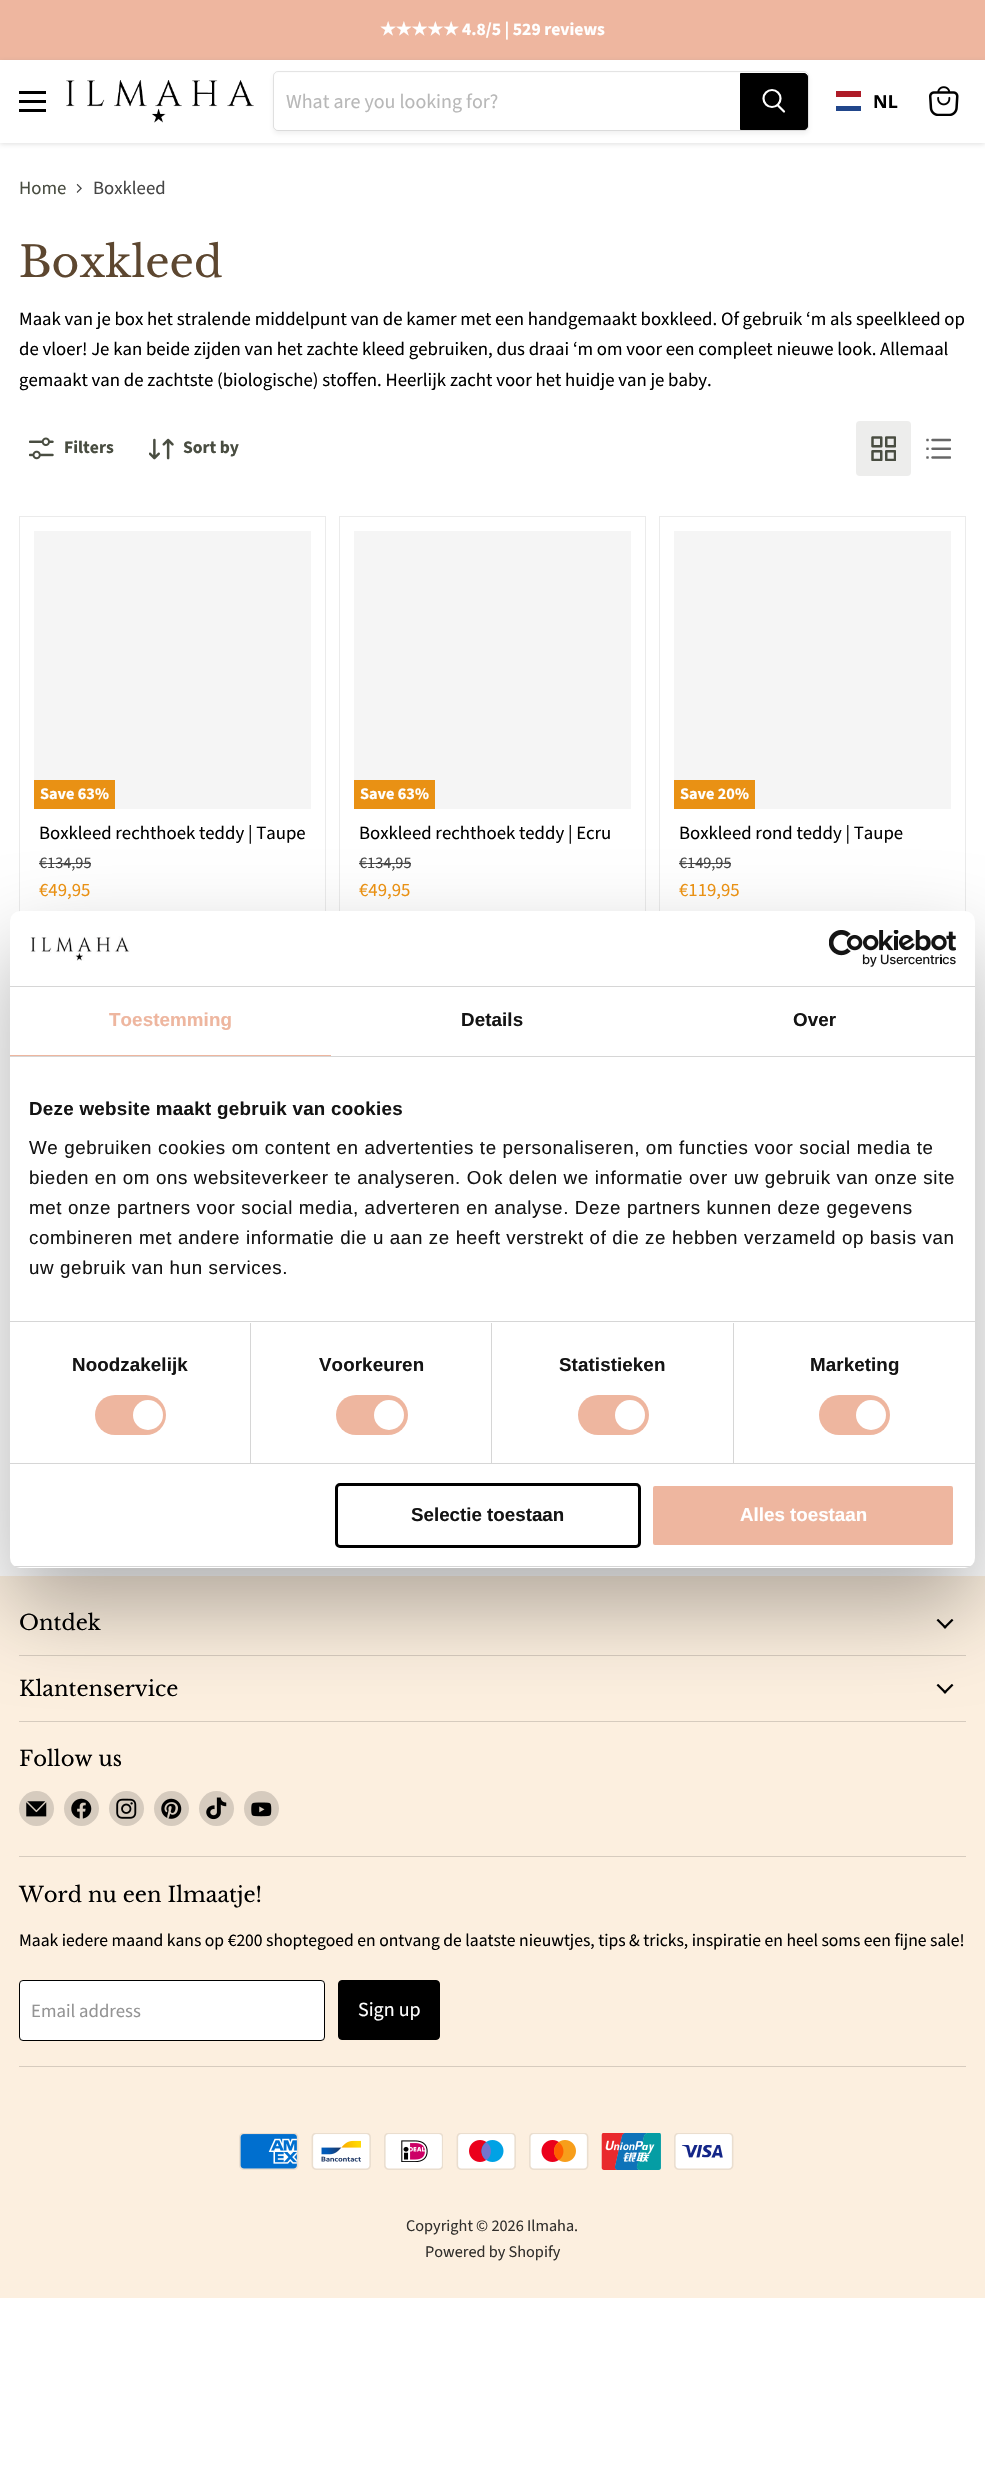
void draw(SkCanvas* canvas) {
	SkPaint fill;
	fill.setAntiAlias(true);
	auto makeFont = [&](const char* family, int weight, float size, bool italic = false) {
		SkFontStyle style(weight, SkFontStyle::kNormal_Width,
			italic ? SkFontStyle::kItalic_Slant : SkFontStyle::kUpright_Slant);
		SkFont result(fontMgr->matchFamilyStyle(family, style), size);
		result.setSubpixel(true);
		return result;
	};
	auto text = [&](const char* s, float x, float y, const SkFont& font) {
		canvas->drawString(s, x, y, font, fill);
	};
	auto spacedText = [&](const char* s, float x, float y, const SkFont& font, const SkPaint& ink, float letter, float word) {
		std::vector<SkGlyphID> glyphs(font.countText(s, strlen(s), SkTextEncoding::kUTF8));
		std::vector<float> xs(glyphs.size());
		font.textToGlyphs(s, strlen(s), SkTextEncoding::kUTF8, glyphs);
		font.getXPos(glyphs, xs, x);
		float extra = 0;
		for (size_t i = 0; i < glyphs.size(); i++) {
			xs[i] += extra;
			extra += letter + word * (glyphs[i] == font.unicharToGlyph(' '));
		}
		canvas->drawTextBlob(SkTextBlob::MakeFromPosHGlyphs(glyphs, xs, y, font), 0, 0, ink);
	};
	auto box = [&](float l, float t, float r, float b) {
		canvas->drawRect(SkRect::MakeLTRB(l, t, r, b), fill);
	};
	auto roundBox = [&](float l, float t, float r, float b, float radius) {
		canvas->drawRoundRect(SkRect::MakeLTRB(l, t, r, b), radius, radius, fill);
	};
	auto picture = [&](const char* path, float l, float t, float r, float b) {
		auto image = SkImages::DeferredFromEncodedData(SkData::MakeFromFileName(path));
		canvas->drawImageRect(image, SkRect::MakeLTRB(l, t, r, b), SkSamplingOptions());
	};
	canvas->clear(0xFFFFFFFF);
	fill.setColor(0xFFEEB69F);
	box(0, 0, 985, 60);
	fill.setColor(0x40808080);
	fill.setMaskFilter(SkMaskFilter::MakeBlur(kNormal_SkBlurStyle, 2.5f));
	canvas->drawRect(SkRect::MakeLTRB(0, 61, 985, 144), fill);
	fill.setMaskFilter(nullptr);
	fill.setColor(0xFFFFFFFF);
	box(0, 60, 985, 143);
	fill.setColor(0xFF000000);
	box(19, 91, 46, 94);
	box(19, 100, 46, 103);
	box(19, 109, 46, 112);
	picture("image0.png", 66, 80, 254, 123);
	fill.setColor(0x1C808080);
	fill.setMaskFilter(SkMaskFilter::MakeBlur(kNormal_SkBlurStyle, 2));
	canvas->drawRoundRect(SkRect::MakeLTRB(273, 74, 809, 134), 5, 5, fill);
	fill.setMaskFilter(nullptr);
	fill.setStyle(SkPaint::kStroke_Style);
	fill.setStrokeWidth(1);
	fill.setColor(0x33808080);
	canvas->drawRoundRect(SkRect::MakeLTRB(273.5f, 71.5f, 808.5f, 130.5f), 4.5f, 4.5f, fill);
	fill.setStyle(SkPaint::kFill_Style);
	fill.setColor(0xFFFFFFFF);
	canvas->drawPath(SkPathBuilder().moveTo(278, 73).lineTo(740, 73).lineTo(740, 130).lineTo(278, 130).cubicTo(276, 130, 274, 128, 274, 126).lineTo(274, 77).cubicTo(274, 75, 276, 73, 278, 73).close().detach(), fill);
	fill.setColor(0xFF000000);
	canvas->drawPath(SkPathBuilder().moveTo(740.5f, 73.5f).lineTo(804, 73.5f).cubicTo(806, 73.5f, 807.5f, 75, 807.5f, 77).lineTo(807.5f, 126).cubicTo(807.5f, 128, 806, 129.5f, 804, 129.5f).lineTo(740.5f, 129.5f).close().detach(), fill);
	fill.setStyle(SkPaint::kStroke_Style);
	canvas->drawPath(SkPathBuilder().moveTo(740.5f, 73.5f).lineTo(804, 73.5f).cubicTo(806, 73.5f, 807.5f, 75, 807.5f, 77).lineTo(807.5f, 126).cubicTo(807.5f, 128, 806, 129.5f, 804, 129.5f).lineTo(740.5f, 129.5f).close().detach(), fill);
	fill.setStrokeWidth(2.2f);
	fill.setStrokeCap(SkPaint::kRound_Cap);
	fill.setColor(0xFFFFFFFF);
	canvas->drawPath(SkPathBuilder().moveTo(784, 111.5f).lineTo(778, 105.5f).detach(), fill);
	fill.setStrokeCap(SkPaint::kButt_Cap);
	canvas->drawCircle(772, 98.5f, 8.5f, fill);
	fill.setStyle(SkPaint::kFill_Style);
	fill.setColor(0xFFAE1C28);
	box(836, 91, 861, 97);
	fill.setColor(0xFF21468B);
	box(836, 106, 861, 111);
	picture("image1.png", 929, 86, 959, 116);
	picture("image2.png", 76, 183, 82, 193);
	picture("image3.png", 29, 437, 54, 460);
	picture("image4.png", 149, 438, 174, 460);
	fill.setColor(0xFFEDEDEC);
	roundBox(856, 421, 911, 476, 4);
	picture("image5.png", 871, 436, 896, 461);
	picture("image6.png", 926, 438, 951, 459);
	fill.setStyle(SkPaint::kStroke_Style);
	fill.setStrokeWidth(1);
	fill.setColor(0xFFEBEBEB);
	canvas->drawRect(SkRect::MakeLTRB(19.5f, 516.5f, 325.5f, 955.5f), fill);
	fill.setStyle(SkPaint::kFill_Style);
	fill.setColor(0xFFF5F5F5);
	box(34, 531, 311, 809);
	fill.setColor(0xFFE99114);
	box(34, 780, 115, 809);
	fill.setColor(0xFF464646);
	box(39, 863, 91, 864);
	fill.setStyle(SkPaint::kStroke_Style);
	fill.setColor(0xFFEBEBEB);
	canvas->drawRect(SkRect::MakeLTRB(339.5f, 516.5f, 645.5f, 955.5f), fill);
	fill.setStyle(SkPaint::kFill_Style);
	fill.setColor(0xFFF5F5F5);
	box(354, 531, 631, 809);
	fill.setColor(0xFFE99114);
	box(354, 780, 435, 809);
	fill.setColor(0xFF464646);
	box(359, 863, 411, 864);
	fill.setStyle(SkPaint::kStroke_Style);
	fill.setColor(0xFFEBEBEB);
	canvas->drawRect(SkRect::MakeLTRB(659.5f, 516.5f, 965.5f, 955.5f), fill);
	fill.setStyle(SkPaint::kFill_Style);
	fill.setColor(0xFFF5F5F5);
	box(674, 531, 951, 809);
	fill.setColor(0xFFE99114);
	box(674, 780, 755, 809);
	fill.setColor(0xFF464646);
	box(679, 863, 731, 864);
	fill.setColor(0xFFFCEFDF);
	box(0, 1576, 985, 2298);
	fill.setColor(0xFFD6CBBE);
	box(19, 1655, 966, 1656);
	picture("image9.png", 936, 1619, 954, 1629);
	box(19, 1721, 966, 1722);
	picture("image9.png", 936, 1684, 954, 1694);
	fill.setColor(0x4D000000);
	fill.setMaskFilter(SkMaskFilter::MakeBlur(kNormal_SkBlurStyle, 42.5f));
	canvas->drawRoundRect(SkRect::MakeLTRB(10, 951, 975, 1608), 10, 10, fill);
	fill.setMaskFilter(nullptr);
	fill.setColor(0xFFFFFFFF);
	roundBox(10, 911, 975, 1568, 10);
	fill.setColor(0xFFD6D6D6);
	box(10, 986, 975, 987);
	picture("image7.png", 30, 936, 130, 961);
	picture("image8.png", 829, 930, 956, 967);
	box(10, 1056, 975, 1057);
	fill.setColor(0xFFEEB69F);
	box(10, 1055, 331, 1056);
	fill.setColor(0xFFD6D6D6);
	box(10, 1321, 975, 1322);
	box(10, 1463, 975, 1464);
	box(250, 1323, 251, 1463);
	fill.setColor(0xFFEEB69F);
	roundBox(95, 1395, 166, 1435, 20);
	fill.setColor(0xFFFFFFFF);
	canvas->drawCircle(148, 1415, 15, fill);
	fill.setColor(0xFFD6D6D6);
	box(491, 1323, 492, 1463);
	fill.setColor(0xFFEEB69F);
	roundBox(336, 1395, 408, 1435, 20);
	fill.setColor(0xFFFFFFFF);
	canvas->drawCircle(389, 1415, 15, fill);
	fill.setColor(0xFFD6D6D6);
	box(733, 1323, 734, 1463);
	fill.setColor(0xFFEEB69F);
	roundBox(578, 1395, 649, 1435, 20);
	fill.setColor(0xFFFFFFFF);
	canvas->drawCircle(630, 1415, 15, fill);
	fill.setColor(0xFFEEB69F);
	roundBox(819, 1395, 890, 1435, 20);
	fill.setColor(0xFFFFFFFF);
	canvas->drawCircle(871, 1415, 15, fill);
	canvas->save();
	canvas->clipPath(SkPathBuilder().moveTo(20, 911).lineTo(965, 911).cubicTo(970.5f, 911, 975, 915.5f, 975, 921).lineTo(975, 1558).cubicTo(975, 1563.5f, 970.5f, 1568, 965, 1568).lineTo(20, 1568).cubicTo(14.5f, 1568, 10, 1563.5f, 10, 1558).lineTo(10, 921).cubicTo(10, 915.5f, 14.5f, 911, 20, 911).close().detach(), true);
	fill.setColor(0xFFD6D6D6);
	box(10, 1566, 975, 1567);
	canvas->restore();
	fill.setStyle(SkPaint::kStroke_Style);
	fill.setStrokeWidth(3);
	fill.setColor(0xFF000000);
	canvas->drawRoundRect(SkRect::MakeLTRB(336.5f, 1484.5f, 639.5f, 1546.5f), 3.5f, 3.5f, fill);
	fill.setStyle(SkPaint::kFill_Style);
	fill.setColor(0xFFEEB69F);
	canvas->drawRoundRect(SkRect::MakeLTRB(651.5f, 1484.5f, 954.5f, 1546.5f), 3.5f, 3.5f, fill);
	fill.setStyle(SkPaint::kStroke_Style);
	fill.setColor(0xFFFFFFFF);
	canvas->drawRoundRect(SkRect::MakeLTRB(651.5f, 1484.5f, 954.5f, 1546.5f), 3.5f, 3.5f, fill);
	fill.setStyle(SkPaint::kFill_Style);
	fill.setColor(0xFFD6CBBE);
	box(19, 1856, 966, 1857);
	canvas->drawCircle(36.5f, 1808.5f, 17.5f, fill);
	picture("image10.png", 26, 1801, 47, 1817);
	canvas->drawCircle(81.5f, 1808.5f, 17.5f, fill);
	picture("image11.png", 71, 1798, 92, 1819);
	canvas->drawCircle(126.5f, 1808.5f, 17.5f, fill);
	picture("image12.png", 116, 1798, 137, 1819);
	canvas->drawCircle(171.5f, 1808.5f, 17.5f, fill);
	picture("image13.png", 161, 1798, 182, 1819);
	canvas->drawCircle(216.5f, 1808.5f, 17.5f, fill);
	picture("image14.png", 206, 1797, 227, 1820);
	canvas->drawCircle(261.5f, 1808.5f, 17.5f, fill);
	picture("image15.png", 251, 1802, 272, 1817);
	box(19, 2066, 966, 2067);
	fill.setColor(0xFFFFFFFF);
	canvas->drawRoundRect(SkRect::MakeLTRB(19.5f, 1980.5f, 324.5f, 2040.5f), 3.5f, 3.5f, fill);
	fill.setStyle(SkPaint::kStroke_Style);
	fill.setStrokeWidth(1);
	fill.setColor(0xFF000000);
	canvas->drawRoundRect(SkRect::MakeLTRB(19.5f, 1980.5f, 324.5f, 2040.5f), 3.5f, 3.5f, fill);
	fill.setStyle(SkPaint::kFill_Style);
	canvas->drawRoundRect(SkRect::MakeLTRB(338.5f, 1980.5f, 439.5f, 2039.5f), 3.5f, 3.5f, fill);
	fill.setStyle(SkPaint::kStroke_Style);
	canvas->drawRoundRect(SkRect::MakeLTRB(338.5f, 1980.5f, 439.5f, 2039.5f), 3.5f, 3.5f, fill);
	picture("image16.png", 239, 2133, 299, 2170);
	picture("image17.png", 311, 2133, 371, 2170);
	picture("image18.png", 384, 2133, 443, 2170);
	picture("image19.png", 456, 2133, 516, 2170);
	picture("image20.png", 529, 2133, 589, 2170);
	picture("image21.png", 601, 2133, 661, 2170);
	picture("image22.png", 674, 2133, 734, 2170);
	auto font1 = makeFont("DejaVu Sans", 700, 17.58f);
	fill.setStyle(SkPaint::kFill_Style);
	fill.setColor(0xFFFFFFFF);
	text("★★★★★", 380, 35, font1);
	auto font2 = makeFont("Source Sans Pro", 700, 17.58f);
	text("4.8/5 | 529 reviews", 462, 35, font2);
	auto font3 = makeFont("Source Sans Pro", 400, 20);
	fill.setColor(0xFFB8B8B8);
	text("What are you looking for?", 286, 108, font3);
	auto font4 = makeFont("Noto Sans", 700, 18);
	fill.setColor(0xFF000000);
	text("NL", 873, 108, font4);
	auto font5 = makeFont("Source Sans Pro", 400, 18.75f);
	fill.setColor(0xFF494D41);
	text("Home", 19, 194, font5);
	fill.setColor(0xFF464646);
	text("Boxkleed", 93, 194, font5);
	auto font6 = makeFont("Libre Baskerville", 400, 42.5f);
	fill.setColor(0xFF5D4730);
	text("Boxkleed", 19, 277, font6);
	fill.setColor(0xFF000000);
	text("Maak van je box het stralende middelpunt van de kamer met een handgemaakt boxkleed. Of gebruik ‘m als speelkleed op", 19, 325, font5);
	text("de vloer! Je kan beide zijden van het zachte kleed gebruiken, dus draai ‘m om voor een compleet nieuwe look. Allemaal", 19, 355, font5);
	text("gemaakt van de zachtste (biologische) stoffen. Heerlijk zacht voor het huidje van je baby.", 19, 386, font5);
	fill.setColor(0xFF494D41);
	text("Filters", 64, 453, font2);
	text("Sort by", 183, 453, font2);
	auto font7 = makeFont("Source Sans Pro", 700, 16.25f);
	fill.setColor(0xFFFFFFFF);
	text("Save 63%", 40, 799, font7);
	fill.setColor(0xFF000000);
	text("Boxkleed rechthoek teddy | Taupe", 39, 839, font5);
	auto font8 = makeFont("Source Sans Pro", 400, 16.25f);
	fill.setColor(0xFF464646);
	text("€134,95", 39, 868, font8);
	fill.setColor(0xFFE99114);
	text("€49,95", 39, 896, font5);
	fill.setColor(0xFFFFFFFF);
	text("Save 63%", 360, 799, font7);
	fill.setColor(0xFF000000);
	text("Boxkleed rechthoek teddy | Ecru", 359, 839, font5);
	fill.setColor(0xFF464646);
	text("€134,95", 359, 868, font8);
	fill.setColor(0xFFE99114);
	text("€49,95", 359, 896, font5);
	fill.setColor(0xFFFFFFFF);
	text("Save 20%", 680, 799, font7);
	fill.setColor(0xFF000000);
	text("Boxkleed rond teddy | Taupe", 679, 839, font5);
	fill.setColor(0xFF464646);
	text("€149,95", 679, 868, font8);
	fill.setColor(0xFFE99114);
	text("€119,95", 679, 896, font5);
	auto font9 = makeFont("Liberation Sans", 700, 18.75f);
	fill.setColor(0xFFEEB69F);
	spacedText("Toestemming", 109, 1026, font9, fill, 0.1f, 0);
	fill.setColor(0xFF141414);
	spacedText("Details", 461, 1026, font9, fill, 0.1f, 0);
	spacedText("Over", 793, 1026, font9, fill, 0.1f, 0);
	spacedText("Deze website maakt gebruik van cookies", 29, 1115, font9, fill, 0.3f, 0);
	auto font10 = makeFont("Liberation Sans", 400, 18.75f);
	spacedText("We gebruiken cookies om content en advertenties te personaliseren, om functies voor social media te", 29, 1154, font10, fill, 0.62f, 0);
	spacedText("bieden en om ons websiteverkeer te analyseren. Ook delen we informatie over uw gebruik van onze site", 29, 1184, font10, fill, 0.62f, 0);
	spacedText("met onze partners voor social media, adverteren en analyse. Deze partners kunnen deze gegevens", 29, 1214, font10, fill, 0.62f, 0);
	spacedText("combineren met andere informatie die u aan ze heeft verstrekt of die ze hebben verzameld op basis van", 29, 1244, font10, fill, 0.62f, 0);
	spacedText("uw gebruik van hun services.", 29, 1274, font10, fill, 0.62f, 0);
	spacedText("Noodzakelijk", 72, 1371, font9, fill, 0.1f, 0);
	spacedText("Voorkeuren", 319, 1371, font9, fill, 0.1f, 0);
	spacedText("Statistieken", 559, 1371, font9, fill, 0.1f, 0);
	spacedText("Marketing", 810, 1371, font9, fill, 0.1f, 0);
	text("Selectie toestaan", 411, 1521, font9);
	fill.setColor(0xFFFFFFFF);
	text("Alles toestaan", 740, 1521, font9);
	auto font11 = makeFont("Libre Baskerville", 400, 21.1f);
	fill.setColor(0xFF000000);
	text("Ontdek", 19, 1630, font11);
	text("Klantenservice", 19, 1696, font11);
	text("Follow us", 19, 1766, font11);
	text("Word nu een Ilmaatje!", 19, 1902, font11);
	auto font12 = makeFont("Source Sans Pro", 400, 17.58f);
	text("Maak iedere maand kans op €200 shoptegoed en ontvang de laatste nieuwtjes, tips & tricks, inspiratie en heel soms een fijne sale!", 19, 1946, font12);
	fill.setColor(0xFF949494);
	text("Email address", 31, 2017, font5);
	fill.setColor(0xFFFFFFFF);
	text("Sign up", 358, 2016, font3);
	fill.setColor(0xFF32302D);
	text("Copyright © 2026 Ilmaha.", 406, 2231, font8);
	text("Powered by Shopify", 425, 2257, font8);
}
